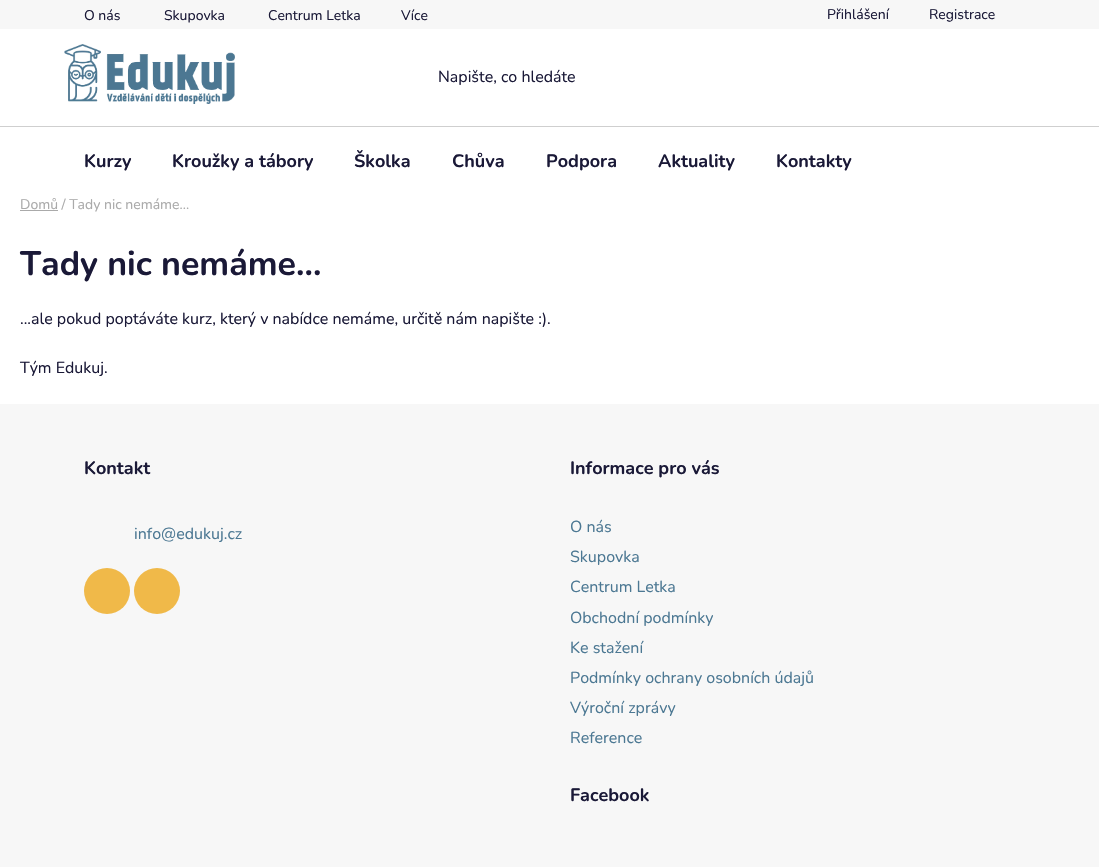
void draw(SkCanvas* canvas) {
	SkPaint fill;
	fill.setAntiAlias(true);
	auto makeFont = [&](const char* family, int weight, float size, bool italic = false) {
		SkFontStyle style(weight, SkFontStyle::kNormal_Width,
			italic ? SkFontStyle::kItalic_Slant : SkFontStyle::kUpright_Slant);
		SkFont result(fontMgr->matchFamilyStyle(family, style), size);
		result.setSubpixel(true);
		return result;
	};
	auto text = [&](const char* s, float x, float y, const SkFont& font) {
		canvas->drawString(s, x, y, font, fill);
	};
	auto box = [&](float l, float t, float r, float b) {
		canvas->drawRect(SkRect::MakeLTRB(l, t, r, b), fill);
	};
	auto picture = [&](const char* path, float l, float t, float r, float b) {
		auto image = SkImages::DeferredFromEncodedData(SkData::MakeFromFileName(path));
		canvas->drawImageRect(image, SkRect::MakeLTRB(l, t, r, b), SkSamplingOptions());
	};
	canvas->clear(0xFFFFFFFF);
	fill.setColor(0xFFF7F7F7);
	box(0, 0, 1099, 29);
	picture("image0.png", 64, 44, 235, 104);
	fill.setColor(0xFFCFCFCF);
	box(0, 126, 1099, 127);
	fill.setColor(0xFFAAAAAA);
	box(20, 210, 58, 211);
	fill.setColor(0xFFF7F7F7);
	box(0, 404, 1099, 867);
	fill.setColor(0xFFF0B949);
	canvas->drawCircle(107, 591, 23, fill);
	canvas->drawCircle(157, 591, 23, fill);
	auto font1 = makeFont("Nunito", 400, 14);
	fill.setColor(0xFF1A1937);
	text("O nás", 84, 20, font1);
	text("Skupovka", 164, 20, font1);
	text("Centrum Letka", 268, 20, font1);
	text("Více", 401, 20, font1);
	text("Přihlášení", 827, 19, font1);
	text("Registrace", 929, 19, font1);
	auto font2 = makeFont("Nunito", 400, 16);
	text("Napište, co hledáte", 438, 82, font2);
	auto font3 = makeFont("Nunito", 700, 18);
	text("Kurzy", 84, 167, font3);
	text("Kroužky a tábory", 172, 167, font3);
	text("Školka", 354, 167, font3);
	text("Chůva", 452, 167, font3);
	text("Podpora", 546, 167, font3);
	text("Aktuality", 658, 167, font3);
	text("Kontakty", 776, 167, font3);
	fill.setColor(0xFFAAAAAA);
	text("Domů / Tady nic nemáme...", 20, 209, font1);
	auto font4 = makeFont("Nunito", 700, 34);
	fill.setColor(0xFF1A1937);
	text("Tady nic nemáme...", 20, 275, font4);
	text("...ale pokud poptáváte kurz, který v nabídce nemáme, určitě nám napište :).", 20, 324, font2);
	text("Tým Edukuj.", 20, 373, font2);
	text("Kontakt", 84, 474, font3);
	fill.setColor(0xFF4C7893);
	text("info@edukuj.cz", 134, 539, font2);
	fill.setColor(0xFF1A1937);
	text("Informace pro vás", 570, 474, font3);
	fill.setColor(0xFF4C7893);
	text("O nás", 570, 532, font2);
	text("Skupovka", 570, 562, font2);
	text("Centrum Letka", 570, 592, font2);
	text("Obchodní podmínky", 570, 623, font2);
	text("Ke stažení", 570, 653, font2);
	text("Podmínky ochrany osobních údajů", 570, 683, font2);
	text("Výroční zprávy", 570, 713, font2);
	text("Reference", 570, 743, font2);
	fill.setColor(0xFF1A1937);
	text("Facebook", 570, 801, font3);
}
